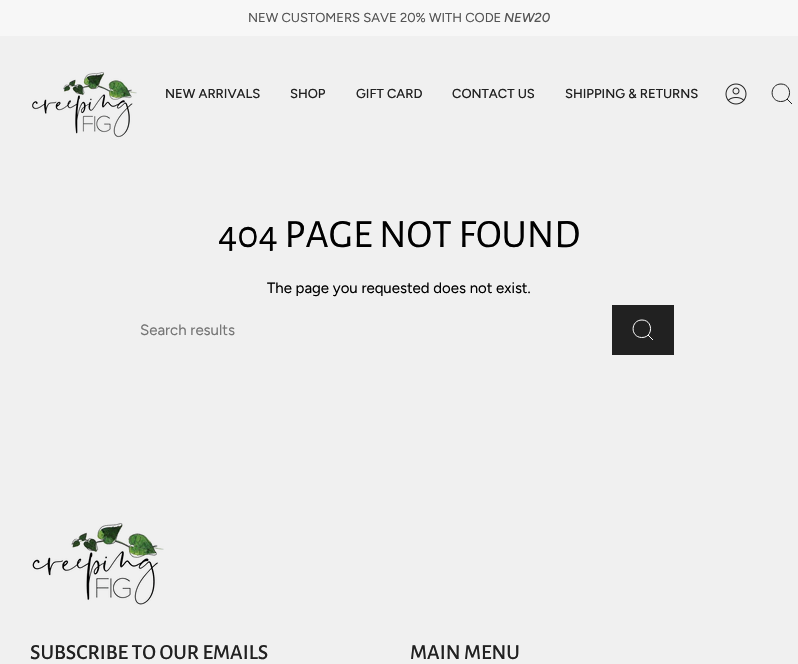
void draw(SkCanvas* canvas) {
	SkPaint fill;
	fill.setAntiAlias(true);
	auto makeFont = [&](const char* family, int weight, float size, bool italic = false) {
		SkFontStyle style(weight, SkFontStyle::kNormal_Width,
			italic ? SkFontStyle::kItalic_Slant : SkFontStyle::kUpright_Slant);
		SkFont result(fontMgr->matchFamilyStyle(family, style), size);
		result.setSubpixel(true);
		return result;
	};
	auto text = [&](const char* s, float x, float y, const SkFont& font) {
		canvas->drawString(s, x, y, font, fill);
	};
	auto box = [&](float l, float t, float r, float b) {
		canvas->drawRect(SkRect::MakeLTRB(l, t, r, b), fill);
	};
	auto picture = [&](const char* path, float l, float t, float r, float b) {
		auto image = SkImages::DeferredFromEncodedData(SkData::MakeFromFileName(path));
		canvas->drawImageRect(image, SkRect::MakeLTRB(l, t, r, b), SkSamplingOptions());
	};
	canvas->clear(0xFFF0F0F0);
	fill.setColor(0xFFF7F7F7);
	box(0, 0, 798, 36);
	picture("image0.png", 32, 72, 137, 138);
	picture("image1.png", 725, 83, 747, 105);
	fill.setStyle(SkPaint::kStroke_Style);
	fill.setStrokeWidth(1);
	fill.setColor(0xFF212121);
	canvas->drawPath(SkPathBuilder().moveTo(781, 84).cubicTo(792.5f, 84, 792.5f, 102, 780.5f, 101.5f).cubicTo(769, 101, 769.5f, 84, 781, 84).close().moveTo(787, 99).lineTo(792, 104).detach(), fill);
	fill.setStyle(SkPaint::kFill_Style);
	box(612, 305, 674, 355);
	fill.setStyle(SkPaint::kStroke_Style);
	fill.setColor(0xFFFFFFFF);
	canvas->drawPath(SkPathBuilder().moveTo(642, 320).cubicTo(653.5f, 320, 653.5f, 338, 641.5f, 337.5f).cubicTo(630, 337, 630.5f, 320, 642, 320).close().moveTo(648, 335).lineTo(653, 340).detach(), fill);
	picture("image2.png", 32, 523, 164, 605);
	auto font1 = makeFont("Figtree", 400, 13);
	fill.setStyle(SkPaint::kFill_Style);
	fill.setColor(0xFF545454);
	text("NEW CUSTOMERS SAVE 20% WITH CODE", 248, 22, font1);
	auto font2 = makeFont("Figtree", 500, 13, true);
	text("NEW20", 504, 22, font2);
	auto font3 = makeFont("Figtree", 500, 13);
	fill.setColor(0xFF212121);
	text("NEW ARRIVALS", 165, 98, font3);
	text("SHOP", 290, 98, font3);
	text("GIFT CARD", 356, 98, font3);
	text("CONTACT US", 452, 98, font3);
	text("SHIPPING & RETURNS", 565, 98, font3);
	auto font4 = makeFont("Alegreya Sans", 400, 40.25f);
	fill.setColor(0xFF000000);
	text("404 PAGE NOT FOUND", 218, 247, font4);
	auto font5 = makeFont("Figtree", 400, 15);
	text("The page you requested does not exist.", 267, 293, font5);
	fill.setColor(0xFF757575);
	text("Search results", 140, 335, font5);
	auto font6 = makeFont("Alegreya Sans", 500, 21.5f);
	fill.setColor(0xFF212121);
	text("SUBSCRIBE TO OUR EMAILS", 30, 659, font6);
	text("MAIN MENU", 410, 659, font6);
}
